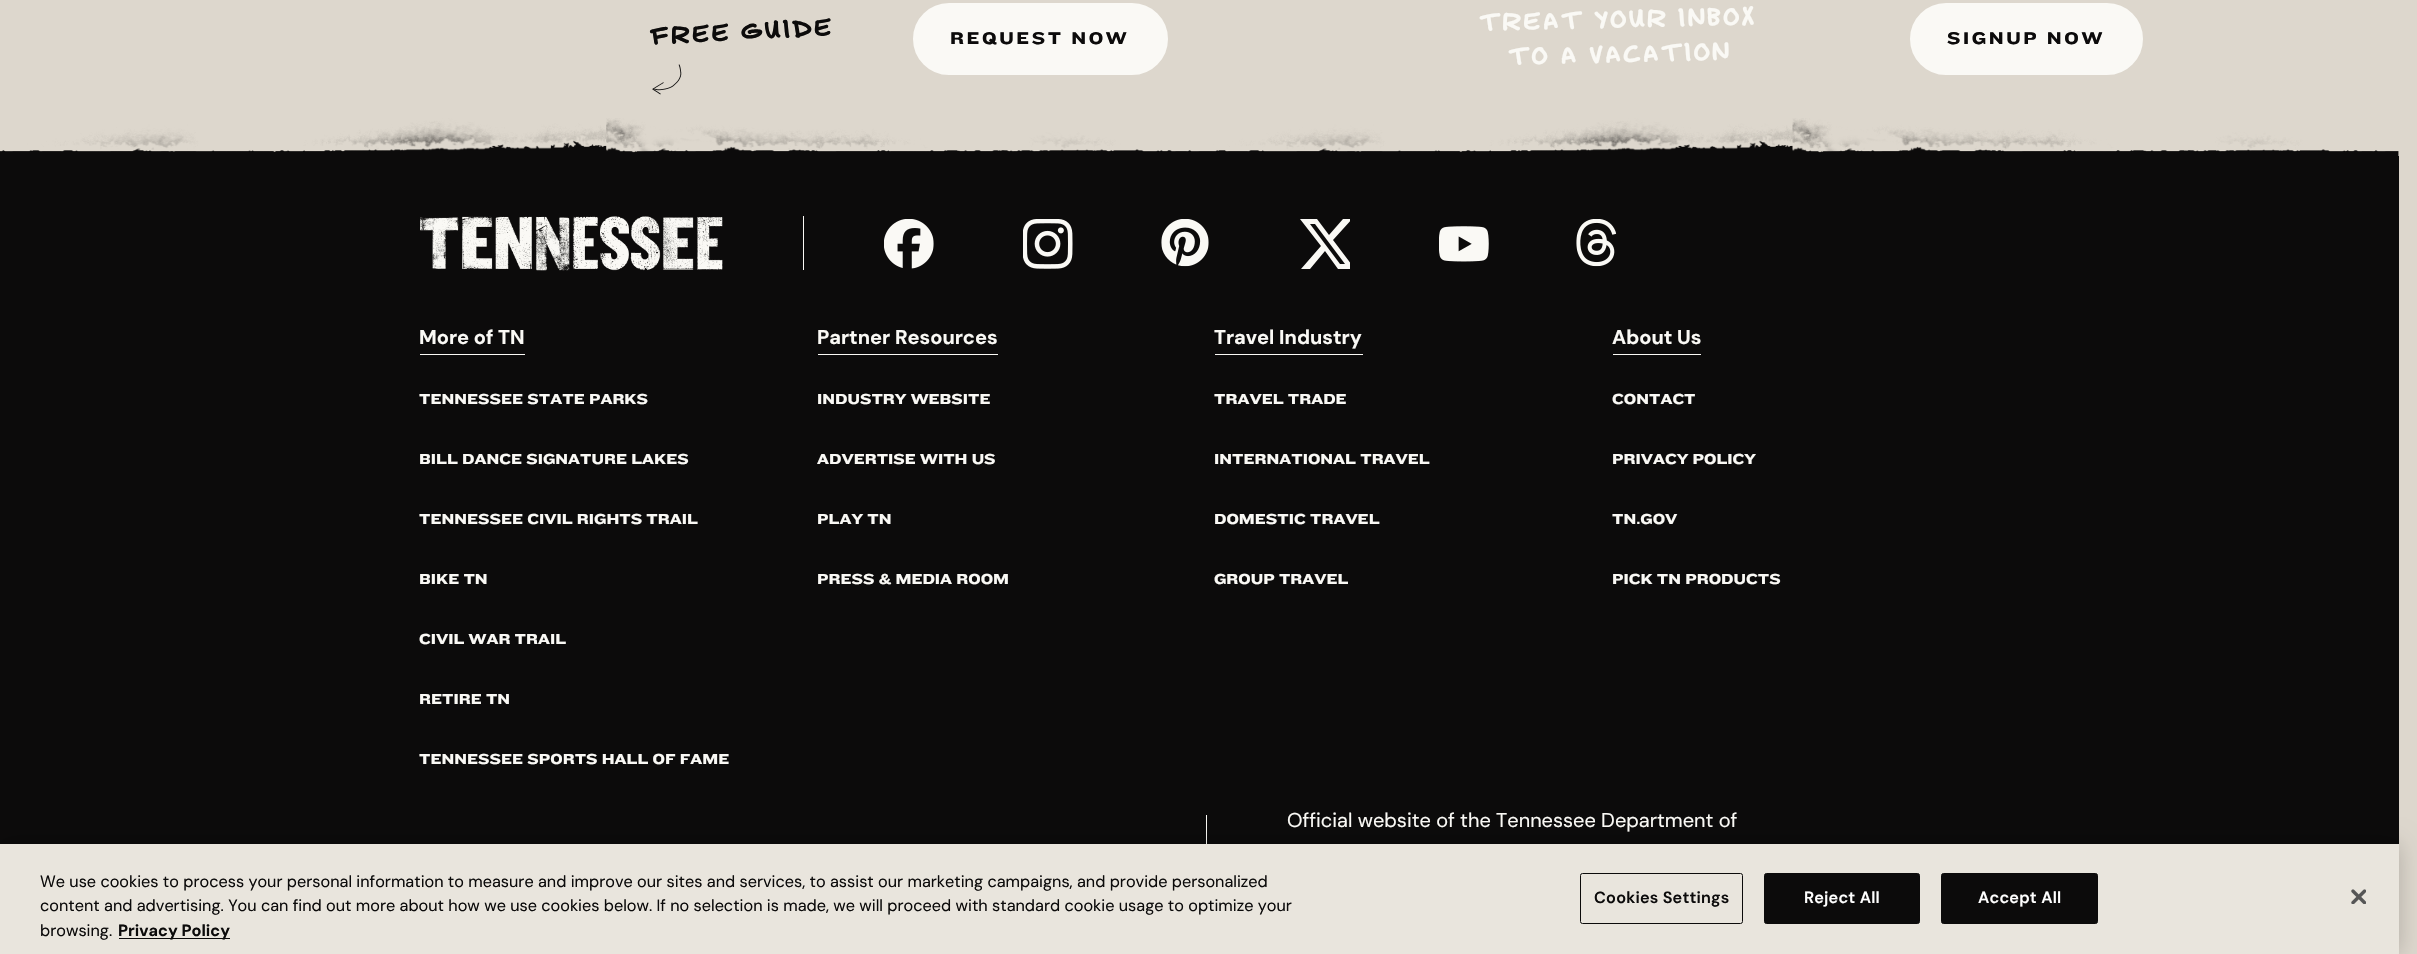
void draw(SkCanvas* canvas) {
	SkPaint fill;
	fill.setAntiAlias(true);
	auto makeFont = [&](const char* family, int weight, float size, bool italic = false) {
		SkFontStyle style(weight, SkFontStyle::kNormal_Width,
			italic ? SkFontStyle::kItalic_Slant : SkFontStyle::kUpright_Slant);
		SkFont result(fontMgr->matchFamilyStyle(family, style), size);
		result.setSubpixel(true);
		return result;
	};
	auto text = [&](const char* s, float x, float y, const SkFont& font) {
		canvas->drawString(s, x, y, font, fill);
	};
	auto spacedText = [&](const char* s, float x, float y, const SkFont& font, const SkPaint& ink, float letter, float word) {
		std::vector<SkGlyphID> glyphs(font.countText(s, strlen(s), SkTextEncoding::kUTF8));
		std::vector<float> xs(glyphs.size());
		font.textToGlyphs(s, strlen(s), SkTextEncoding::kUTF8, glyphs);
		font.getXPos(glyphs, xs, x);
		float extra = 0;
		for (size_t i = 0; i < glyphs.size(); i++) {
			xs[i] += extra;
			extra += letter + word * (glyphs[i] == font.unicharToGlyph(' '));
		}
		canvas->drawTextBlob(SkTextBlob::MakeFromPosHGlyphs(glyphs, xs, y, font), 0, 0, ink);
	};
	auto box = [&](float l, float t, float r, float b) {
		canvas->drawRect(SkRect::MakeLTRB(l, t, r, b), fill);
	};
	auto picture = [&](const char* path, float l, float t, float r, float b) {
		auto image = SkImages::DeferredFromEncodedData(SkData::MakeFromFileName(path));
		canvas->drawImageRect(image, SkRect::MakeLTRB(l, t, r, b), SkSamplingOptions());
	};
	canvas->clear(0xFFDDD7CD);
	picture("image0.png", 652, 64, 682, 95);
	fill.setColor(0xFFFAF9F5);
	canvas->drawRoundRect(SkRect::MakeLTRB(914.5f, 4.5f, 1166.5f, 73.5f), 34.5f, 34.5f, fill);
	fill.setStyle(SkPaint::kStroke_Style);
	fill.setStrokeWidth(3);
	canvas->drawRoundRect(SkRect::MakeLTRB(914.5f, 4.5f, 1166.5f, 73.5f), 34.5f, 34.5f, fill);
	fill.setStyle(SkPaint::kFill_Style);
	canvas->drawRoundRect(SkRect::MakeLTRB(1911.5f, 4.5f, 2141.5f, 73.5f), 34.5f, 34.5f, fill);
	fill.setStyle(SkPaint::kStroke_Style);
	canvas->drawRoundRect(SkRect::MakeLTRB(1911.5f, 4.5f, 2141.5f, 73.5f), 34.5f, 34.5f, fill);
	picture("image1.png", 0, 118, 2399, 156);
	fill.setStyle(SkPaint::kFill_Style);
	fill.setColor(0xFF0C0B0B);
	box(0, 156, 2399, 844);
	fill.setColor(0xFFFAF9F5);
	box(803, 216, 804, 270);
	picture("image2.png", 420, 216, 723, 271);
	picture("image3.png", 884, 219, 934, 269);
	picture("image4.png", 1023, 219, 1073, 269);
	picture("image5.png", 1161, 219, 1209, 267);
	canvas->save();
	canvas->clipRect(SkRect::MakeLTRB(1300, 219, 1350, 269));
	canvas->drawPath(SkPathBuilder().moveTo(1343, 219).lineTo(1352, 219).lineTo(1333, 240).lineTo(1355, 269).lineTo(1338, 269).lineTo(1325, 251).lineTo(1310, 269).lineTo(1301, 269).lineTo(1321, 246).lineTo(1300, 219).lineTo(1317, 219).lineTo(1329, 235).close().moveTo(1340, 264).lineTo(1345, 264).lineTo(1315, 224).lineTo(1310, 224).close().detach(), fill);
	canvas->restore();
	picture("image6.png", 1439, 226, 1489, 262);
	picture("image7.png", 1576, 219, 1617, 267);
	box(420, 354, 525, 355);
	box(818, 354, 998, 355);
	box(1215, 354, 1363, 355);
	box(1613, 354, 1701, 355);
	box(1206, 815, 1207, 844);
	fill.setColor(0x33000000);
	fill.setMaskFilter(SkMaskFilter::MakeBlur(kNormal_SkBlurStyle, 11));
	canvas->drawRect(SkRect::MakeLTRB(0, 844, 2399, 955), fill);
	fill.setMaskFilter(nullptr);
	fill.setColor(0xFFE9E5DD);
	box(0, 844, 2399, 954);
	fill.setColor(0xFF0C0B0B);
	box(119, 938, 230, 939);
	fill.setStyle(SkPaint::kStroke_Style);
	fill.setStrokeWidth(1);
	canvas->drawRoundRect(SkRect::MakeLTRB(1580.5f, 873.5f, 1742.5f, 923.5f), 2, 2, fill);
	fill.setStyle(SkPaint::kFill_Style);
	canvas->drawRoundRect(SkRect::MakeLTRB(1764.5f, 873.5f, 1919.5f, 923.5f), 2, 2, fill);
	fill.setStyle(SkPaint::kStroke_Style);
	canvas->drawRoundRect(SkRect::MakeLTRB(1764.5f, 873.5f, 1919.5f, 923.5f), 2, 2, fill);
	fill.setStyle(SkPaint::kFill_Style);
	canvas->drawRoundRect(SkRect::MakeLTRB(1941.5f, 873.5f, 2097.5f, 923.5f), 2, 2, fill);
	fill.setStyle(SkPaint::kStroke_Style);
	canvas->drawRoundRect(SkRect::MakeLTRB(1941.5f, 873.5f, 2097.5f, 923.5f), 2, 2, fill);
	picture("image8.png", 2351, 889, 2366, 904);
	auto font1 = makeFont("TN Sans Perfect", 700, 25, true);
	fill.setStyle(SkPaint::kFill_Style);
	canvas->save();
	canvas->rotate(-3, 649, 45);
	text("FREE GUIDE", 649, 45, font1);
	canvas->restore();
	auto font2 = makeFont("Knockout", 400, 17.5f);
	spacedText("REQUEST NOW", 950, 44, font2, fill, 2.6f, 0);
	fill.setColor(0xFFFAF9F5);
	canvas->save();
	canvas->rotate(-1.3f, 1478, 31);
	text("TREAT YOUR INBOX", 1478, 31, font1);
	canvas->restore();
	canvas->save();
	canvas->rotate(-1.3f, 1507, 65);
	spacedText("TO A VACATION", 1507, 65, font1, fill, 0, 1);
	canvas->restore();
	fill.setColor(0xFF0C0B0B);
	spacedText("SIGNUP NOW", 1947, 44, font2, fill, 2.6f, 0);
	auto font3 = makeFont("DM Sans", 700, 20);
	fill.setColor(0xFFFAF9F5);
	text("More of TN", 419, 344, font3);
	auto font4 = makeFont("Knockout", 400, 15);
	text("TENNESSEE STATE PARKS", 419, 404, font4);
	text("BILL DANCE SIGNATURE LAKES", 419, 464, font4);
	text("TENNESSEE CIVIL RIGHTS TRAIL", 419, 524, font4);
	text("BIKE TN", 419, 584, font4);
	text("CIVIL WAR TRAIL", 419, 644, font4);
	text("RETIRE TN", 419, 704, font4);
	text("TENNESSEE SPORTS HALL OF FAME", 419, 764, font4);
	text("Partner Resources", 817, 344, font3);
	text("INDUSTRY WEBSITE", 817, 404, font4);
	text("ADVERTISE WITH US", 817, 464, font4);
	text("PLAY TN", 817, 524, font4);
	text("PRESS & MEDIA ROOM", 817, 584, font4);
	text("Travel Industry", 1214, 344, font3);
	text("TRAVEL TRADE", 1214, 404, font4);
	text("INTERNATIONAL TRAVEL", 1214, 464, font4);
	text("DOMESTIC TRAVEL", 1214, 524, font4);
	text("GROUP TRAVEL", 1214, 584, font4);
	text("About Us", 1612, 344, font3);
	text("CONTACT", 1612, 404, font4);
	text("PRIVACY POLICY", 1612, 464, font4);
	text("TN.GOV", 1612, 524, font4);
	text("PICK TN PRODUCTS", 1612, 584, font4);
	auto font5 = makeFont("DM Sans", 400, 20);
	text("Official website of the Tennessee Department of", 1287, 827, font5);
	auto font6 = makeFont("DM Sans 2", 400, 16.25f);
	fill.setColor(0xFF0C0B0B);
	text("We use cookies to process your personal information to measure and improve our sites and services, to assist our marketing campaigns, and provide personalized", 40, 887, font6);
	text("content and advertising. You can find out more about how we use cookies below. If no selection is made, we will proceed with standard cookie usage to optimize your", 40, 911, font6);
	text("browsing.", 40, 936, font6);
	auto font7 = makeFont("DM Sans 2", 700, 16.25f);
	text("Privacy Policy", 118, 936, font7);
	auto font8 = makeFont("DM Sans", 600, 16.25f);
	spacedText("Cookies Settings", 1594, 903, font8, fill, 0.2f, 0);
	fill.setColor(0xFFFFFFFF);
	spacedText("Reject All", 1804, 903, font8, fill, 0.2f, 0);
	spacedText("Accept All", 1978, 903, font8, fill, 0.2f, 0);
}
